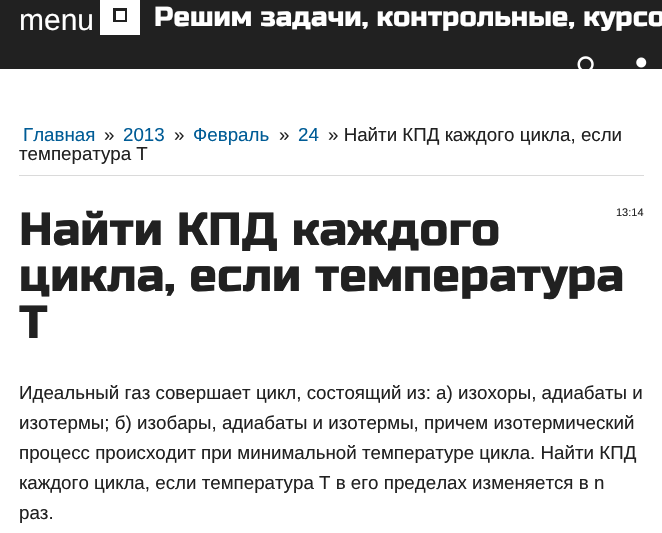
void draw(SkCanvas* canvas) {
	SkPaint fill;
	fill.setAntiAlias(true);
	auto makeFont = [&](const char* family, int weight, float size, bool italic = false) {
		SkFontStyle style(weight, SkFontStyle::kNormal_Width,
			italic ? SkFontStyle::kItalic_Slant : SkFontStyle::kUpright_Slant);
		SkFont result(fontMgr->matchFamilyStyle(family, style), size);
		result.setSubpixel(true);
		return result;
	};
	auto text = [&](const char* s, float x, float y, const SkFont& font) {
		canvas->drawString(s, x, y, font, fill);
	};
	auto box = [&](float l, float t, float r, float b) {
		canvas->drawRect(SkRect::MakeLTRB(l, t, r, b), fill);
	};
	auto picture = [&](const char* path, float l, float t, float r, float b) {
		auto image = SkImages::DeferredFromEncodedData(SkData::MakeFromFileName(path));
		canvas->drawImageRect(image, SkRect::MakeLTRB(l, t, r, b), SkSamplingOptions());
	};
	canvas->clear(0xFFFFFFFF);
	fill.setColor(0xFF212121);
	box(0, 0, 662, 69);
	fill.setColor(0xFFFFFFFF);
	box(116, 11, 125, 20);
	fill.setStyle(SkPaint::kStroke_Style);
	fill.setStrokeWidth(13);
	canvas->drawRect(SkRect::MakeLTRB(106.5f, 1.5f, 133.5f, 28.5f), fill);
	picture("image0.png", 577, 56, 594, 69);
	picture("image1.png", 636, 57, 647, 68);
	fill.setStyle(SkPaint::kFill_Style);
	fill.setColor(0xFFDADADA);
	box(19, 175, 644, 176);
	auto font1 = makeFont("Liberation Sans", 400, 30);
	fill.setColor(0xFFFFFFFF);
	text("menu", 19, 30, font1);
	auto font2 = makeFont("Russo One", 400, 27.5f);
	text("Решим задачи, контрольные, курсо", 154, 26, font2);
	auto font3 = makeFont("Liberation Sans", 400, 18.75f);
	fill.setColor(0xFF005C96);
	text("Главная", 23, 141, font3);
	fill.setColor(0xFF212121);
	text("»", 104, 141, font3);
	fill.setColor(0xFF005C96);
	text("2013", 123, 141, font3);
	fill.setColor(0xFF212121);
	text("»", 174, 141, font3);
	fill.setColor(0xFF005C96);
	text("Февраль", 193, 141, font3);
	fill.setColor(0xFF212121);
	text("»", 279, 141, font3);
	fill.setColor(0xFF005C96);
	text("24", 298, 141, font3);
	fill.setColor(0xFF212121);
	text("» Найти КПД каждого цикла, если", 328, 141, font3);
	text("температура Т", 19, 160, font3);
	auto font4 = makeFont("Russo One", 400, 46.25f);
	text("Найти КПД каждого", 19, 245, font4);
	auto font5 = makeFont("Liberation Sans", 400, 11);
	text("13:14", 616, 216, font5);
	text("цикла, если температура", 19, 291, font4);
	text("Т", 19, 338, font4);
	text("Идеальный газ совершает цикл, состоящий из: а) изохоры, адиабаты и", 19, 399, font3);
	text("изотермы; б) изобары, адиабаты и изотермы, причем изотермический", 19, 429, font3);
	text("процесс происходит при минимальной температуре цикла. Найти КПД", 19, 459, font3);
	text("каждого цикла, если температура Т в его пределах изменяется в n", 19, 489, font3);
	text("раз.", 19, 519, font3);
}
